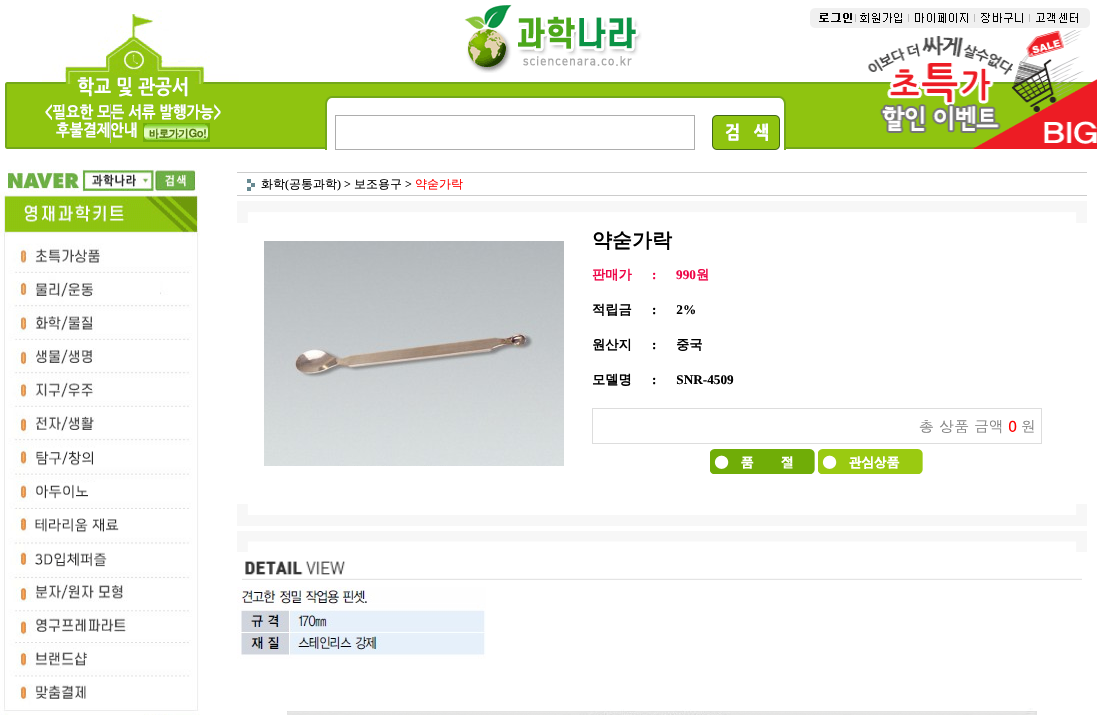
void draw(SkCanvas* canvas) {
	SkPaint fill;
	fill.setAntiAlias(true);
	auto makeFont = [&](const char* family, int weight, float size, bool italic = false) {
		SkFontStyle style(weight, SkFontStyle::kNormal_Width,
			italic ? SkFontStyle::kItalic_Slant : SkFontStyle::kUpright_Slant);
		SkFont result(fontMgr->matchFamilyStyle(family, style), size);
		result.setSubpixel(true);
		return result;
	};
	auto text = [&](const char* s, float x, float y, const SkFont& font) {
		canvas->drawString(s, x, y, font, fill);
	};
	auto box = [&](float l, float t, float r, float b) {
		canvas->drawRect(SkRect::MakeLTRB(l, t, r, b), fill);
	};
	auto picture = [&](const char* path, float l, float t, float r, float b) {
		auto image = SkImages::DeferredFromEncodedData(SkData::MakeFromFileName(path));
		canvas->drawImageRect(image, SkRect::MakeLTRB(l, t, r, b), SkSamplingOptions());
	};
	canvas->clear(0xFFFFFFFF);
	picture("image0.png", 5, 10, 320, 149);
	picture("image1.png", 464, 4, 642, 73);
	picture("image2.png", 810, 8, 1090, 28);
	picture("image3.png", 790, 30, 1097, 149);
	picture("image4.png", 320, 82, 790, 150);
	fill.setStyle(SkPaint::kStroke_Style);
	fill.setStrokeWidth(1);
	fill.setColor(0xFFADADAD);
	canvas->drawRect(SkRect::MakeLTRB(335.5f, 115.5f, 694.5f, 149.5f), fill);
	picture("image5.png", 712, 115, 780, 150);
	picture("image6.png", 0, 169, 200, 715);
	fill.setStyle(SkPaint::kFill_Style);
	fill.setColor(0xFFCCCCCC);
	box(237, 172, 1087, 173);
	picture("image7.png", 247, 179, 255, 191);
	box(237, 195, 1087, 196);
	picture("image8.png", 237, 201, 1087, 223);
	picture("image9.png", 264, 241, 564, 466);
	fill.setStyle(SkPaint::kStroke_Style);
	fill.setColor(0xFFDDDDDD);
	canvas->drawRect(SkRect::MakeLTRB(592.5f, 408.5f, 1041.5f, 443.5f), fill);
	picture("image10.png", 710, 449, 815, 474);
	picture("image11.png", 818, 449, 923, 474);
	picture("image12.png", 237, 504, 1087, 526);
	picture("image13.png", 237, 531, 1087, 552);
	picture("image14.png", 242, 561, 1082, 580);
	picture("image15.png", 237, 587, 486, 659);
	picture("image16.png", 287, 708, 1037, 715);
	auto font1 = makeFont("WenQuanYi Zen Hei", 500, 12);
	fill.setStyle(SkPaint::kFill_Style);
	fill.setColor(0xFF000000);
	text("화학", 261, 188, font1);
	auto font2 = makeFont("Liberation Serif", 400, 12);
	text("(", 285, 188, font2);
	text("공통과학", 289, 188, font1);
	text(") >", 337, 188, font2);
	text("보조용구", 354, 188, font1);
	text(">", 405, 188, font2);
	fill.setColor(0xFFFF0000);
	text("약숟가락", 415, 188, font1);
	auto font3 = makeFont("WenQuanYi Zen Hei", 700, 20);
	fill.setColor(0xFF000000);
	text("약숟가락", 592, 247, font3);
	auto font4 = makeFont("WenQuanYi Zen Hei", 700, 13.25f);
	fill.setColor(0xFFEE0647);
	text("판매가", 592, 279, font4);
	auto font5 = makeFont("Liberation Serif", 700, 13.25f);
	text(":", 652, 279, font5);
	text("990", 676, 279, font5);
	text("원", 696, 279, font4);
	fill.setColor(0xFF000000);
	text("적립금", 592, 314, font4);
	text(":      2%", 652, 314, font5);
	text("원산지", 592, 349, font4);
	text(":", 652, 349, font5);
	text("중국", 676, 349, font4);
	text("모델명", 592, 384, font4);
	text(":      SNR-4509", 652, 384, font5);
	auto font6 = makeFont("Dotum", 400, 15);
	fill.setColor(0xFF858585);
	text("총 상품 금액", 919, 432, font6);
	auto font7 = makeFont("Dotum", 700, 15);
	fill.setColor(0xFFFF0000);
	text("0", 1008, 432, font7);
	fill.setColor(0xFF858585);
	text("원", 1021, 432, font6);
}
